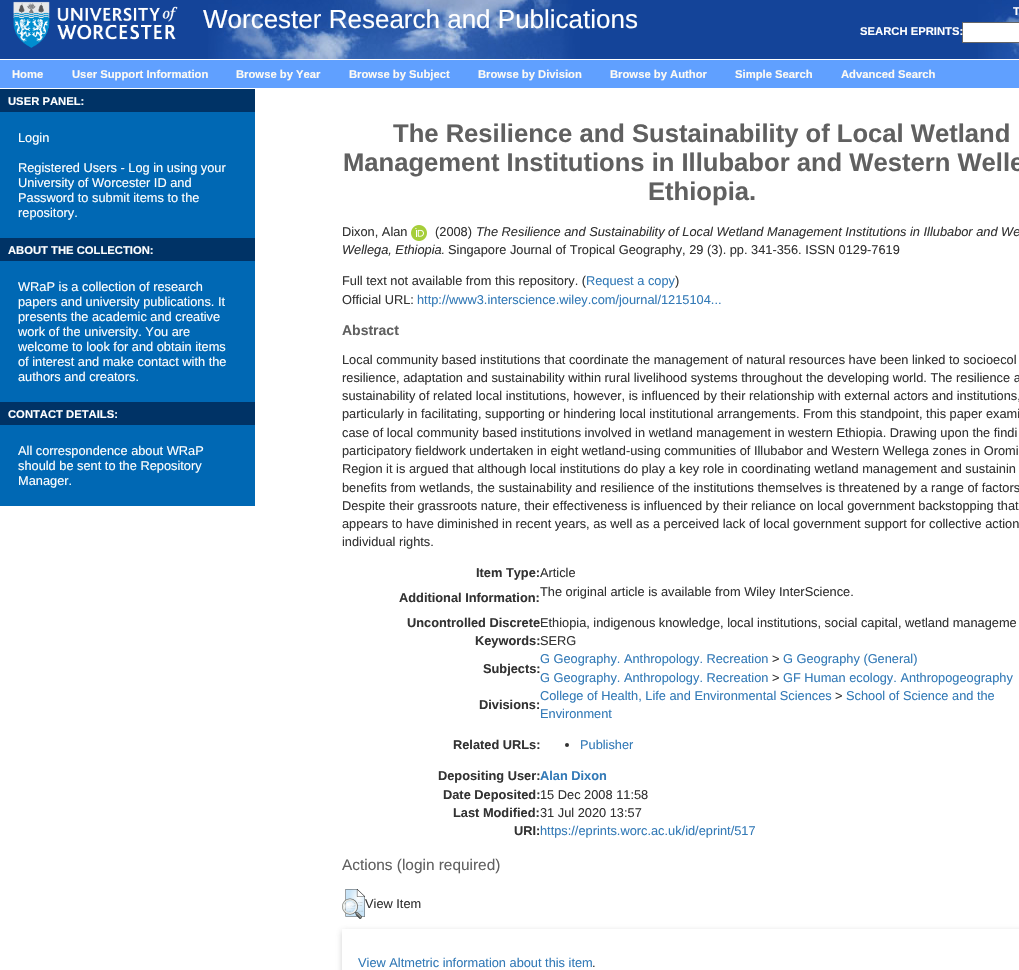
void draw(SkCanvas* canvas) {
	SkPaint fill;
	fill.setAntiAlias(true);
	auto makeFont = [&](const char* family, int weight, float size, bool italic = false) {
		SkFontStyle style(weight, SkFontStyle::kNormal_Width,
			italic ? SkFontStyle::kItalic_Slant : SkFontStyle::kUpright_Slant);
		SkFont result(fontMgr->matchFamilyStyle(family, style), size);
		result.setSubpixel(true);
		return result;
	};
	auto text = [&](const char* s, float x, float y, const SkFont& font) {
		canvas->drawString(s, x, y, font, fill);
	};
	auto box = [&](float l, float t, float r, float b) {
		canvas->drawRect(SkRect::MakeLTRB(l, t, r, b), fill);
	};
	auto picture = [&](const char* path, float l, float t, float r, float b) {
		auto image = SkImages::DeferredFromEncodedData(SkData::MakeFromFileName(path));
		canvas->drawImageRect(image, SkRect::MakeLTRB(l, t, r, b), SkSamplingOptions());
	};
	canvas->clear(0xFFFFFFFF);
	picture("image0.png", 0, 0, 1019, 59);
	picture("image1.png", 13, 1, 178, 48);
	fill.setColor(0xFFFFFFFF);
	canvas->drawRect(SkRect::MakeLTRB(962.5f, 22.5f, 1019.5f, 42.5f), fill);
	fill.setStyle(SkPaint::kStroke_Style);
	fill.setStrokeWidth(1);
	fill.setColor(0xFF666666);
	canvas->drawRect(SkRect::MakeLTRB(962.5f, 22.5f, 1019.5f, 42.5f), fill);
	fill.setStyle(SkPaint::kFill_Style);
	fill.setColor(0xFF60A0FF);
	box(0, 60, 1019, 88);
	fill.setColor(0xFF003366);
	box(0, 89, 255, 112);
	fill.setColor(0xFF0068B4);
	box(0, 112, 255, 238);
	fill.setColor(0xFF003366);
	box(0, 238, 255, 261);
	fill.setColor(0xFF0068B4);
	box(0, 261, 255, 402);
	fill.setColor(0xFF003366);
	box(0, 402, 255, 425);
	fill.setColor(0xFF0068B4);
	box(0, 425, 255, 506);
	picture("image2.png", 411, 225, 427, 241);
	fill.setColor(0xFF333333);
	canvas->drawCircle(567, 745, 2, fill);
	picture("image3.png", 342, 889, 365, 919);
	canvas->save();
	canvas->clipPath(SkPathBuilder(SkPathFillType::kEvenOdd).moveTo(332, 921).lineTo(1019, 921).lineTo(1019, 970).lineTo(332, 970).close().moveTo(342, 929).lineTo(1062, 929).lineTo(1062, 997).lineTo(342, 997).close().detach(), true);
	fill.setColor(0x4D646464);
	fill.setMaskFilter(SkMaskFilter::MakeBlur(kNormal_SkBlurStyle, 3));
	canvas->drawRect(SkRect::MakeLTRB(342, 931, 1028, 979), fill);
	fill.setMaskFilter(nullptr);
	canvas->restore();
	auto font1 = makeFont("Liberation Sans", 400, 26);
	fill.setColor(0xFFFFFFFF);
	text("Worcester Research and Publications", 203, 28, font1);
	auto font2 = makeFont("Liberation Sans", 700, 11.25f);
	text("T", 1013, 15, font2);
	text("SEARCH EPRINTS:", 860, 35, font2);
	fill.setColor(0xFFFEFBF4);
	text("Home", 12, 78, font2);
	text("User Support Information", 72, 78, font2);
	text("Browse by Year", 236, 78, font2);
	text("Browse by Subject", 349, 78, font2);
	text("Browse by Division", 478, 78, font2);
	text("Browse by Author", 610, 78, font2);
	text("Simple Search", 735, 78, font2);
	text("Advanced Search", 841, 78, font2);
	fill.setColor(0xFFFFFFFF);
	text("USER PANEL:", 8, 105, font2);
	auto font3 = makeFont("Liberation Sans", 400, 12.8f);
	text("Login", 18, 142, font3);
	text("Registered Users - Log in using your", 18, 172, font3);
	text("University of Worcester ID and", 18, 187, font3);
	text("Password to submit items to the", 18, 202, font3);
	text("repository.", 18, 217, font3);
	text("ABOUT THE COLLECTION:", 8, 254, font2);
	text("WRaP is a collection of research", 18, 291, font3);
	text("papers and university publications. It", 18, 306, font3);
	text("presents the academic and creative", 18, 321, font3);
	text("work of the university. You are", 18, 336, font3);
	text("welcome to look for and obtain items", 18, 351, font3);
	text("of interest and make contact with the", 18, 366, font3);
	text("authors and creators.", 18, 381, font3);
	text("CONTACT DETAILS:", 8, 418, font2);
	text("All correspondence about WRaP", 18, 455, font3);
	text("should be sent to the Repository", 18, 470, font3);
	text("Manager.", 18, 485, font3);
	auto font4 = makeFont("Liberation Sans", 700, 25.6f);
	fill.setColor(0xFF606060);
	text("The Resilience and Sustainability of Local Wetland", 393, 142, font4);
	text("Management Institutions in Illubabor and Western Welle", 343, 171, font4);
	text("Ethiopia.", 648, 200, font4);
	fill.setColor(0xFF333333);
	text("Dixon, Alan", 342, 236, font3);
	text("(2008)", 435, 236, font3);
	auto font5 = makeFont("Liberation Sans", 400, 12.8f, true);
	text("The Resilience and Sustainability of Local Wetland Management Institutions in Illubabor and We", 476, 236, font5);
	text("Wellega, Ethiopia.", 342, 254, font5);
	text("Singapore Journal of Tropical Geography, 29 (3). pp. 341-356. ISSN 0129-7619", 448, 254, font3);
	text("Full text not available from this repository. (", 342, 285, font3);
	fill.setColor(0xFF337AB7);
	text("Request a copy", 586, 285, font3);
	fill.setColor(0xFF333333);
	text(")", 675, 285, font3);
	text("Official URL:", 342, 304, font3);
	fill.setColor(0xFF337AB7);
	text("http://www3.interscience.wiley.com/journal/1215104...", 417, 304, font3);
	auto font6 = makeFont("Liberation Sans", 700, 14);
	fill.setColor(0xFF606060);
	text("Abstract", 342, 335, font6);
	fill.setColor(0xFF333333);
	text("Local community based institutions that coordinate the management of natural resources have been linked to socioecol", 342, 364, font3);
	text("resilience, adaptation and sustainability within rural livelihood systems throughout the developing world. The resilience a", 342, 382, font3);
	text("sustainability of related local institutions, however, is influenced by their relationship with external actors and institutions,", 342, 400, font3);
	text("particularly in facilitating, supporting or hindering local institutional arrangements. From this standpoint, this paper exami", 342, 418, font3);
	text("case of local community based institutions involved in wetland management in western Ethiopia. Drawing upon the findi", 342, 437, font3);
	text("participatory fieldwork undertaken in eight wetland-using communities of Illubabor and Western Wellega zones in Oromi", 342, 455, font3);
	text("Region it is argued that although local institutions do play a key role in coordinating wetland management and sustainin", 342, 473, font3);
	text("benefits from wetlands, the sustainability and resilience of the institutions themselves is threatened by a range of factors", 342, 492, font3);
	text("Despite their grassroots nature, their effectiveness is influenced by their reliance on local government backstopping that", 342, 510, font3);
	text("appears to have diminished in recent years, as well as a perceived lack of local government support for collective action", 342, 528, font3);
	text("individual rights.", 342, 546, font3);
	auto font7 = makeFont("Liberation Sans", 700, 12.8f);
	text("Item Type:", 476, 577, font7);
	text("Article", 540, 577, font3);
	text("Additional Information:", 399, 602, font7);
	text("The original article is available from Wiley InterScience.", 540, 596, font3);
	text("Uncontrolled Discrete", 407, 627, font7);
	text("Keywords:", 475, 645, font7);
	text("Ethiopia, indigenous knowledge, local institutions, social capital, wetland manageme", 540, 627, font3);
	text("SERG", 540, 645, font3);
	text("Subjects:", 483, 673, font7);
	fill.setColor(0xFF337AB7);
	text("G Geography. Anthropology. Recreation", 540, 663, font3);
	fill.setColor(0xFF333333);
	text(">", 772, 663, font3);
	fill.setColor(0xFF337AB7);
	text("G Geography (General)", 783, 663, font3);
	text("G Geography. Anthropology. Recreation", 540, 682, font3);
	fill.setColor(0xFF333333);
	text(">", 772, 682, font3);
	fill.setColor(0xFF337AB7);
	text("GF Human ecology. Anthropogeography", 783, 682, font3);
	fill.setColor(0xFF333333);
	text("Divisions:", 479, 709, font7);
	fill.setColor(0xFF337AB7);
	text("College of Health, Life and Environmental Sciences", 540, 700, font3);
	fill.setColor(0xFF333333);
	text(">", 835, 700, font3);
	fill.setColor(0xFF337AB7);
	text("School of Science and the", 846, 700, font3);
	text("Environment", 540, 718, font3);
	fill.setColor(0xFF333333);
	text("Related URLs:", 453, 749, font7);
	fill.setColor(0xFF337AB7);
	text("Publisher", 580, 749, font3);
	fill.setColor(0xFF333333);
	text("Depositing User:", 438, 780, font7);
	fill.setColor(0xFF337AB7);
	text("Alan Dixon", 540, 780, font7);
	fill.setColor(0xFF333333);
	text("Date Deposited:", 443, 799, font7);
	text("15 Dec 2008 11:58", 540, 799, font3);
	text("Last Modified:", 453, 817, font7);
	text("31 Jul 2020 13:57", 540, 817, font3);
	text("URI:", 514, 835, font7);
	fill.setColor(0xFF337AB7);
	text("https://eprints.worc.ac.uk/id/eprint/517", 540, 835, font3);
	auto font8 = makeFont("Liberation Sans", 400, 15.4f);
	fill.setColor(0xFF606060);
	text("Actions (login required)", 342, 870, font8);
	fill.setColor(0xFF333333);
	text("View Item", 365, 908, font3);
	fill.setColor(0xFF337AB7);
	text("View Altmetric information about this item", 358, 967, font3);
	fill.setColor(0xFF333333);
	text(".", 592, 967, font3);
}
